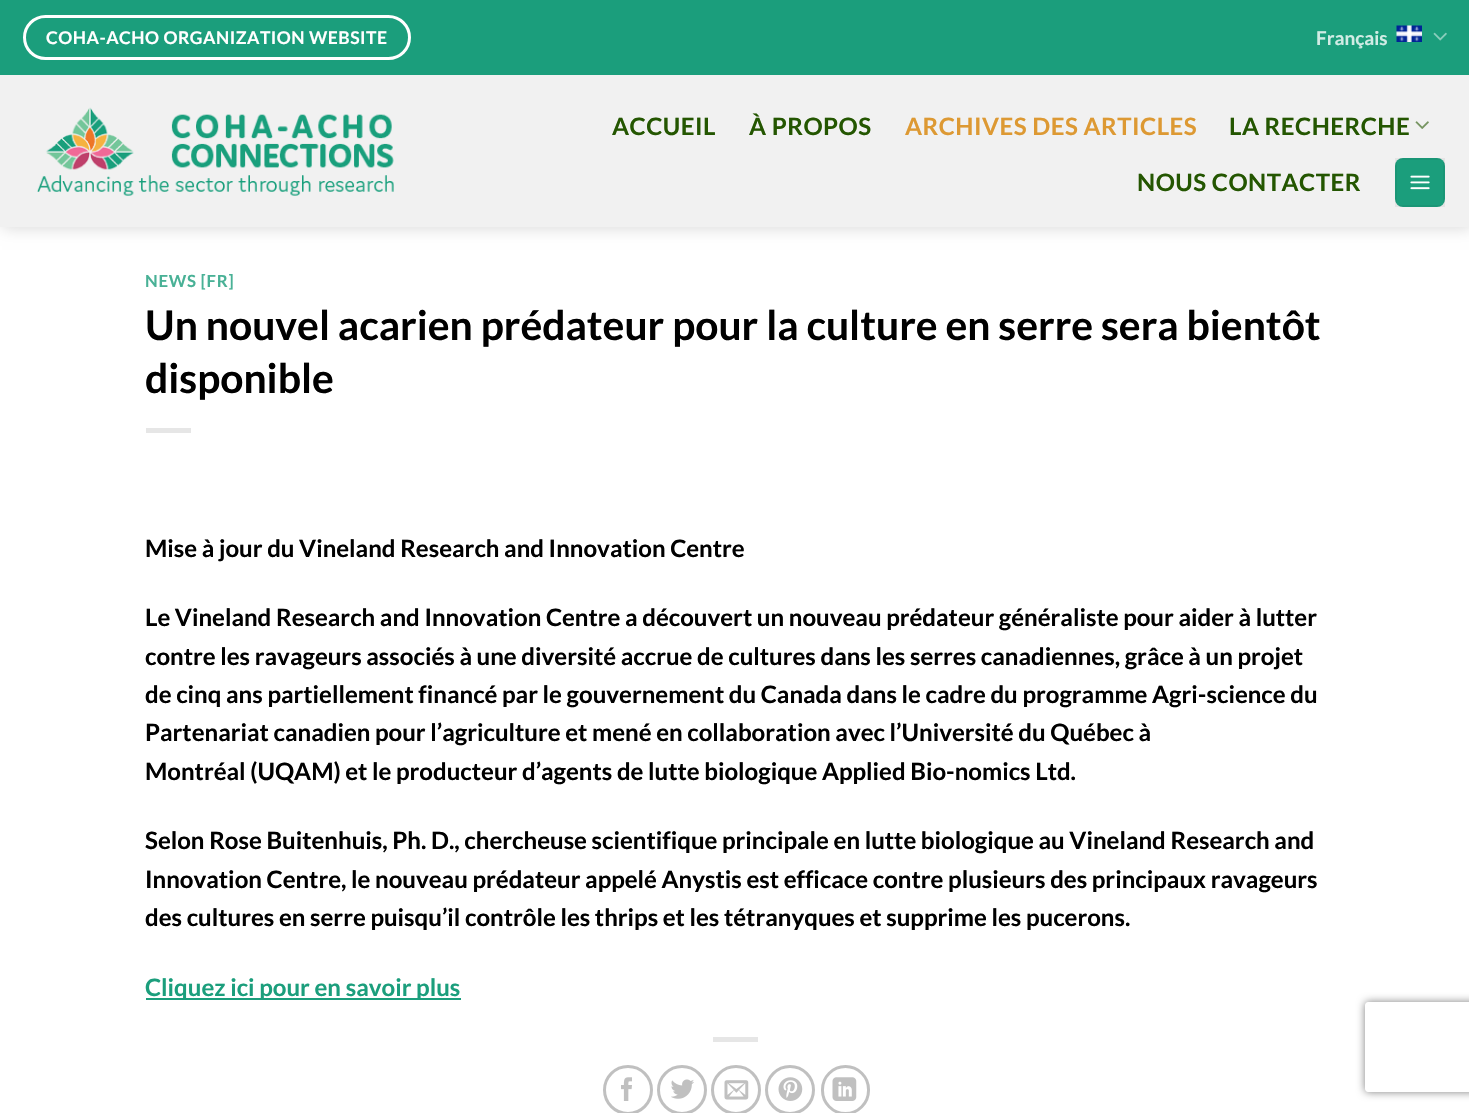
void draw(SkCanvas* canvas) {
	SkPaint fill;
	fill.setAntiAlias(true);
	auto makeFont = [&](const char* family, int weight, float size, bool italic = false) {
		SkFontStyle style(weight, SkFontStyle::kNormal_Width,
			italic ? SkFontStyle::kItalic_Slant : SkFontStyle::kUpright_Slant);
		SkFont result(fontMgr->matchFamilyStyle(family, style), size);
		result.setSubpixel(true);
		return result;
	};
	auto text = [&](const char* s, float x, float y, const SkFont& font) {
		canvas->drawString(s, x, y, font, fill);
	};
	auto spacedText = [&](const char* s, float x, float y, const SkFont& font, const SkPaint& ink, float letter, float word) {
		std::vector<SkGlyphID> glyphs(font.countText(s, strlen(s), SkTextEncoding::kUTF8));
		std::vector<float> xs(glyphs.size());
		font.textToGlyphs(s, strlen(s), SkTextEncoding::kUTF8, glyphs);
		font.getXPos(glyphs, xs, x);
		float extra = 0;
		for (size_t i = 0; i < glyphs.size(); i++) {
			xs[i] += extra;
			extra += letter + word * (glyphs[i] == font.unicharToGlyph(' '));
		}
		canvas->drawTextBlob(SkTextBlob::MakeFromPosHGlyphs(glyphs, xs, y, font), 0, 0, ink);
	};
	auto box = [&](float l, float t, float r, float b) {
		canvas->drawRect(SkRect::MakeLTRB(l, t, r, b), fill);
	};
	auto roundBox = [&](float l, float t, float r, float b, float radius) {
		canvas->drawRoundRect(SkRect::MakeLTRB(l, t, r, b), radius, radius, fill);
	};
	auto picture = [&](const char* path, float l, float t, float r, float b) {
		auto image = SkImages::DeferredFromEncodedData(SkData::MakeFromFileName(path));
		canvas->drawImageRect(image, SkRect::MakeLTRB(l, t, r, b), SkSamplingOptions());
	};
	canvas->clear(0xFFFFFFFF);
	canvas->save();
	canvas->clipPath(SkPathBuilder(SkPathFillType::kEvenOdd).moveTo(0, 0).lineTo(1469, 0).lineTo(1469, 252).lineTo(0, 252).close().moveTo(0, 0).lineTo(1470, 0).lineTo(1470, 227).lineTo(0, 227).close().detach(), true);
	fill.setColor(0x26000000);
	fill.setMaskFilter(SkMaskFilter::MakeBlur(kNormal_SkBlurStyle, 7.5f));
	canvas->drawRect(SkRect::MakeLTRB(2, 2, 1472, 228), fill);
	fill.setMaskFilter(nullptr);
	canvas->restore();
	fill.setColor(0xFF1B9E7C);
	box(0, 0, 1469, 75);
	fill.setStyle(SkPaint::kStroke_Style);
	fill.setStrokeWidth(3);
	fill.setColor(0xFFFFFFFF);
	canvas->drawRoundRect(SkRect::MakeLTRB(24.5f, 16.5f, 409.5f, 58.5f), 21, 21, fill);
	picture("image0.png", 1396, 25, 1422, 42);
	picture("image1.png", 1433, 32, 1447, 41);
	fill.setStyle(SkPaint::kFill_Style);
	fill.setColor(0xE6EFEFEF);
	box(0, 75, 1469, 227);
	picture("image2.png", 37, 107, 394, 196);
	picture("image3.png", 1415, 121, 1429, 129);
	fill.setColor(0xFF1B9E7C);
	roundBox(1395, 158, 1445, 207, 8);
	fill.setStyle(SkPaint::kStroke_Style);
	fill.setStrokeWidth(2);
	fill.setColor(0x0D000000);
	canvas->drawRect(SkRect::MakeLTRB(1396, 159, 1444, 206), fill);
	picture("image4.png", 1410, 175, 1430, 190);
	fill.setStyle(SkPaint::kFill_Style);
	fill.setColor(0xFFE6E6E6);
	box(146, 428, 191, 433);
	fill.setColor(0xFF1B9E7C);
	box(146, 998, 461, 1000);
	fill.setColor(0xFFE6E6E6);
	box(713, 1037, 758, 1042);
	fill.setStyle(SkPaint::kStroke_Style);
	fill.setStrokeWidth(3);
	fill.setColor(0xFFC0C0C0);
	canvas->drawCircle(628, 1090, 23.5f, fill);
	picture("image5.png", 621, 1077, 632, 1101);
	canvas->drawCircle(682, 1090, 23.5f, fill);
	picture("image6.png", 671, 1079, 694, 1099);
	canvas->drawCircle(736, 1090, 23.5f, fill);
	picture("image7.png", 724, 1080, 749, 1100);
	canvas->drawCircle(790, 1090, 23.5f, fill);
	picture("image8.png", 778, 1077, 803, 1101);
	canvas->drawRoundRect(SkRect::MakeLTRB(822.5f, 1066.5f, 868.5f, 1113.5f), 23, 23, fill);
	picture("image9.png", 832, 1077, 857, 1101);
	canvas->save();
	canvas->clipPath(SkPathBuilder(SkPathFillType::kEvenOdd).moveTo(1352, 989).lineTo(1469, 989).lineTo(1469, 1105).lineTo(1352, 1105).close().moveTo(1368, 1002).lineTo(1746, 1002).cubicTo(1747.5f, 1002, 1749, 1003.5f, 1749, 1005).lineTo(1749, 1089).cubicTo(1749, 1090.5f, 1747.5f, 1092, 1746, 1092).lineTo(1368, 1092).cubicTo(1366.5f, 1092, 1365, 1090.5f, 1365, 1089).lineTo(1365, 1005).cubicTo(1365, 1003.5f, 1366.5f, 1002, 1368, 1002).close().detach(), true);
	fill.setStyle(SkPaint::kFill_Style);
	fill.setColor(0xFF808080);
	fill.setMaskFilter(SkMaskFilter::MakeBlur(kNormal_SkBlurStyle, 4));
	canvas->drawRoundRect(SkRect::MakeLTRB(1365, 1002, 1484, 1092), 3, 3, fill);
	fill.setMaskFilter(nullptr);
	canvas->restore();
	auto font1 = makeFont("Lato", 700, 17.5f);
	fill.setColor(0xFFFFFFFF);
	spacedText("COHA-ACHO ORGANIZATION WEBSITE", 46, 44, font1, fill, 0.5f, 0);
	auto font2 = makeFont("Lato", 700, 19);
	fill.setColor(0xFFD1ECE5);
	text("Français", 1316, 45, font2);
	auto font3 = makeFont("Lato", 700, 24);
	fill.setColor(0xFF245601);
	spacedText("ACCUEIL", 612, 135, font3, fill, 0.5f, 0);
	spacedText("À PROPOS", 749, 135, font3, fill, 0.5f, 0);
	fill.setColor(0xFFDD9933);
	spacedText("ARCHIVES DES ARTICLES", 905, 135, font3, fill, 0.5f, 0);
	fill.setColor(0xFF245601);
	spacedText("LA RECHERCHE", 1229, 135, font3, fill, 0.5f, 0);
	spacedText("NOUS CONTACTER", 1137, 191, font3, fill, 0.5f, 0);
	auto font4 = makeFont("Lato", 700, 16.75f);
	fill.setColor(0xFF49B196);
	spacedText("NEWS [FR]", 145, 287, font4, fill, 0.75f, 0);
	auto font5 = makeFont("Lato", 700, 40.8f);
	fill.setColor(0xFF000000);
	text("Un nouvel acarien prédateur pour la culture en serre sera bientôt", 145, 340, font5);
	text("disponible", 145, 393, font5);
	text("Mise à jour du Vineland Research and Innovation Centre", 145, 557, font3);
	text("Le Vineland Research and Innovation Centre a découvert un nouveau prédateur généraliste pour aider à lutter", 145, 626, font3);
	text("contre les ravageurs associés à une diversité accrue de cultures dans les serres canadiennes, grâce à un projet", 145, 665, font3);
	text("de cinq ans partiellement financé par le gouvernement du Canada dans le cadre du programme Agri-science du", 145, 703, font3);
	text("Partenariat canadien pour l’agriculture et mené en collaboration avec l’Université du Québec à", 145, 741, font3);
	text("Montréal (UQAM) et le producteur d’agents de lutte biologique Applied Bio-nomics Ltd.", 145, 780, font3);
	text("Selon Rose Buitenhuis, Ph. D., chercheuse scientifique principale en lutte biologique au Vineland Research and", 145, 849, font3);
	text("Innovation Centre, le nouveau prédateur appelé Anystis est efficace contre plusieurs des principaux ravageurs", 145, 888, font3);
	text("des cultures en serre puisqu’il contrôle les thrips et les tétranyques et supprime les pucerons.", 145, 926, font3);
	fill.setColor(0xFF1B9E7C);
	text("Cliquez ici pour en savoir plus", 145, 996, font3);
}
